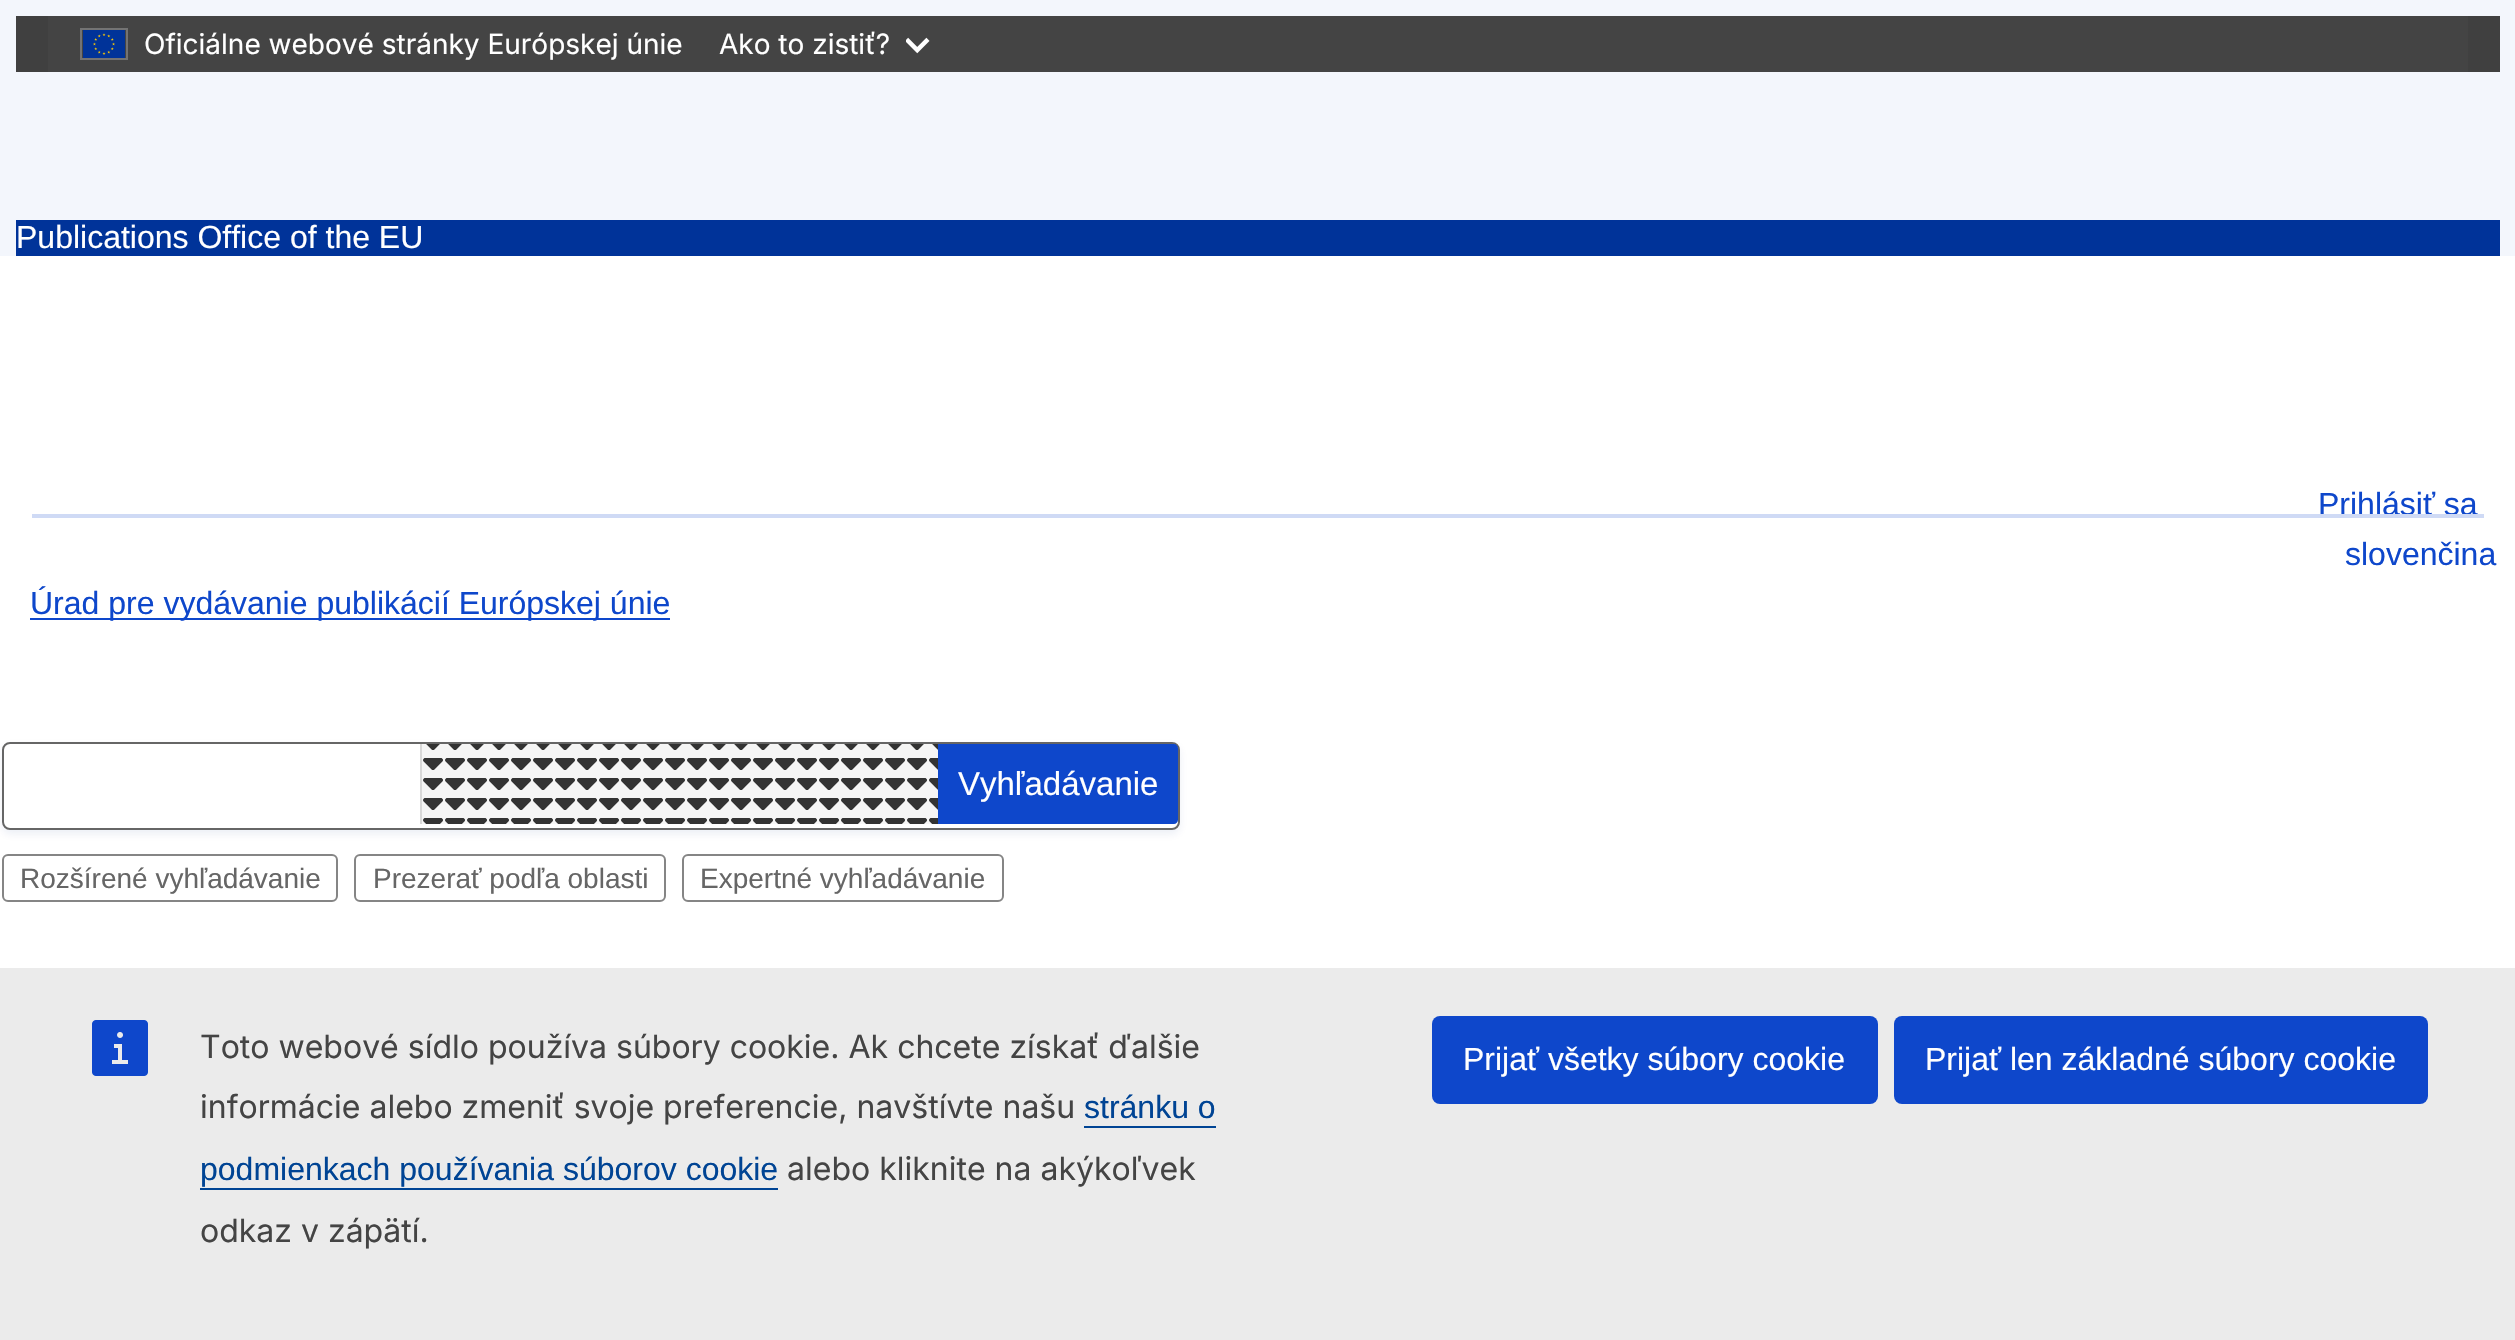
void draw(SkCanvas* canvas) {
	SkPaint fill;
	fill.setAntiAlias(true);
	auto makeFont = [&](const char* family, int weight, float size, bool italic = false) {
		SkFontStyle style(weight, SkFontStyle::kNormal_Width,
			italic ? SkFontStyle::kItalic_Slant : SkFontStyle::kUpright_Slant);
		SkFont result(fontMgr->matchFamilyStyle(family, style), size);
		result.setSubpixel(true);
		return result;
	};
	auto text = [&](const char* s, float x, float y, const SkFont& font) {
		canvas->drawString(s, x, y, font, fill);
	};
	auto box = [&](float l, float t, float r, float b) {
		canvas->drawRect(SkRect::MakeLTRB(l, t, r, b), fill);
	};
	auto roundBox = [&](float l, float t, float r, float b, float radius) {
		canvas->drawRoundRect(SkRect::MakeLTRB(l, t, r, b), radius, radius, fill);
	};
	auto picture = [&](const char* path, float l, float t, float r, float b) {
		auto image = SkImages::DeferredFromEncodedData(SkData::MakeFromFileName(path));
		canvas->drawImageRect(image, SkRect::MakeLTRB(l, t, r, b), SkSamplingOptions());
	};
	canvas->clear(0xFFF3F6FC);
	fill.setColor(0xFF404040);
	box(16, 16, 2500, 72);
	fill.setColor(0xFF444444);
	box(48, 16, 2468, 72);
	fill.setStyle(SkPaint::kStroke_Style);
	fill.setStrokeWidth(2);
	fill.setColor(0xFF737373);
	canvas->drawRect(SkRect::MakeLTRB(81, 29, 127, 59), fill);
	picture("image0.png", 83, 30, 125, 58);
	picture("image1.png", 906, 37, 930, 54);
	fill.setStyle(SkPaint::kFill_Style);
	fill.setColor(0xFFEBEBEB);
	box(0, 968, 2515, 1340);
	picture("image2.png", 92, 1020, 148, 1076);
	fill.setColor(0xFF004494);
	box(1084, 1126, 1216, 1128);
	box(200, 1188, 778, 1190);
	fill.setColor(0xFF0E47CB);
	roundBox(1432, 1016, 1878, 1104, 8);
	roundBox(1894, 1016, 2428, 1104, 8);
	fill.setColor(0xFF003399);
	box(16, 220, 2500, 256);
	fill.setColor(0xFFFFFFFF);
	box(0, 256, 2515, 968);
	fill.setColor(0xFF0E47CB);
	box(30, 618, 670, 620);
	canvas->save();
	canvas->clipPath(SkPathBuilder(SkPathFillType::kEvenOdd).moveTo(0, 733).lineTo(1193, 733).lineTo(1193, 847).lineTo(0, 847).close().moveTo(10, 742).lineTo(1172, 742).cubicTo(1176.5f, 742, 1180, 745.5f, 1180, 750).lineTo(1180, 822).cubicTo(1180, 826.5f, 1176.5f, 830, 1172, 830).lineTo(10, 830).cubicTo(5.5f, 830, 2, 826.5f, 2, 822).lineTo(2, 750).cubicTo(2, 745.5f, 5.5f, 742, 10, 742).close().detach(), true);
	fill.setColor(0x1409318E);
	fill.setMaskFilter(SkMaskFilter::MakeBlur(kNormal_SkBlurStyle, 4));
	canvas->drawRoundRect(SkRect::MakeLTRB(2, 746, 1180, 834), 8, 8, fill);
	fill.setMaskFilter(nullptr);
	canvas->restore();
	fill.setStyle(SkPaint::kStroke_Style);
	fill.setColor(0xFF666666);
	canvas->drawRoundRect(SkRect::MakeLTRB(3, 743, 1179, 829), 7, 7, fill);
	fill.setStyle(SkPaint::kFill_Style);
	fill.setColor(0xFFF5F5F5);
	box(422, 744, 938, 824);
	picture("image3.png", 423, 744, 938, 824);
	fill.setColor(0xFFD8D8D8);
	box(420, 744, 422, 824);
	fill.setColor(0xFF0E47CB);
	canvas->drawPath(SkPathBuilder().moveTo(938, 744).lineTo(1174, 744).cubicTo(1176, 744, 1178, 746, 1178, 748).lineTo(1178, 820).cubicTo(1178, 822, 1176, 824, 1174, 824).lineTo(938, 824).close().detach(), fill);
	fill.setStyle(SkPaint::kStroke_Style);
	fill.setColor(0xFF858585);
	canvas->drawRoundRect(SkRect::MakeLTRB(3, 855, 337, 901), 5, 5, fill);
	canvas->drawRoundRect(SkRect::MakeLTRB(355, 855, 665, 901), 5, 5, fill);
	canvas->drawRoundRect(SkRect::MakeLTRB(683, 855, 1003, 901), 5, 5, fill);
	auto font1 = makeFont("Inter", 400, 28);
	fill.setStyle(SkPaint::kFill_Style);
	fill.setColor(0xFFFFFFFF);
	text("Oficiálne webové stránky Európskej únie", 144, 54, font1);
	text("Ako to zistiť?", 719, 54, font1);
	auto font2 = makeFont("Inter", 400, 32);
	fill.setColor(0xFF444444);
	text("Toto webové sídlo používa súbory cookie. Ak chcete získať ďalšie", 200, 1058, font2);
	text("informácie alebo zmeniť svoje preferencie, navštívte našu", 200, 1118, font2);
	auto font3 = makeFont("Liberation Sans", 400, 32);
	fill.setColor(0xFF004494);
	text("stránku o", 1084, 1118, font3);
	text("podmienkach používania súborov cookie", 200, 1180, font3);
	fill.setColor(0xFF444444);
	text("alebo kliknite na akýkoľvek", 787, 1180, font2);
	text("odkaz v zápätí.", 200, 1242, font2);
	fill.setColor(0xFFFFFFFF);
	text("Prijať všetky súbory cookie", 1463, 1070, font3);
	text("Prijať len základné súbory cookie", 1925, 1070, font3);
	text("Publications Office of the EU", 16, 248, font3);
	fill.setColor(0xFF0E47CB);
	text("Prihlásiť sa", 2318, 515, font3);
	text("slovenčina", 2345, 565, font3);
	fill.setColor(0xFFCFDAF5);
	box(32, 514, 2484, 518);
	fill.setColor(0xFF0E47CB);
	text("Úrad pre vydávanie publikácií Európskej únie", 30, 614, font3);
	auto font4 = makeFont("Liberation Sans", 400, 33);
	fill.setColor(0xFFFFFFFF);
	text("Vyhľadávanie", 958, 795, font4);
	auto font5 = makeFont("Liberation Sans", 400, 28);
	fill.setColor(0xFF666666);
	text("Rozšírené vyhľadávanie", 20, 888, font5);
	text("Prezerať podľa oblasti", 373, 888, font5);
	text("Expertné vyhľadávanie", 700, 888, font5);
}
